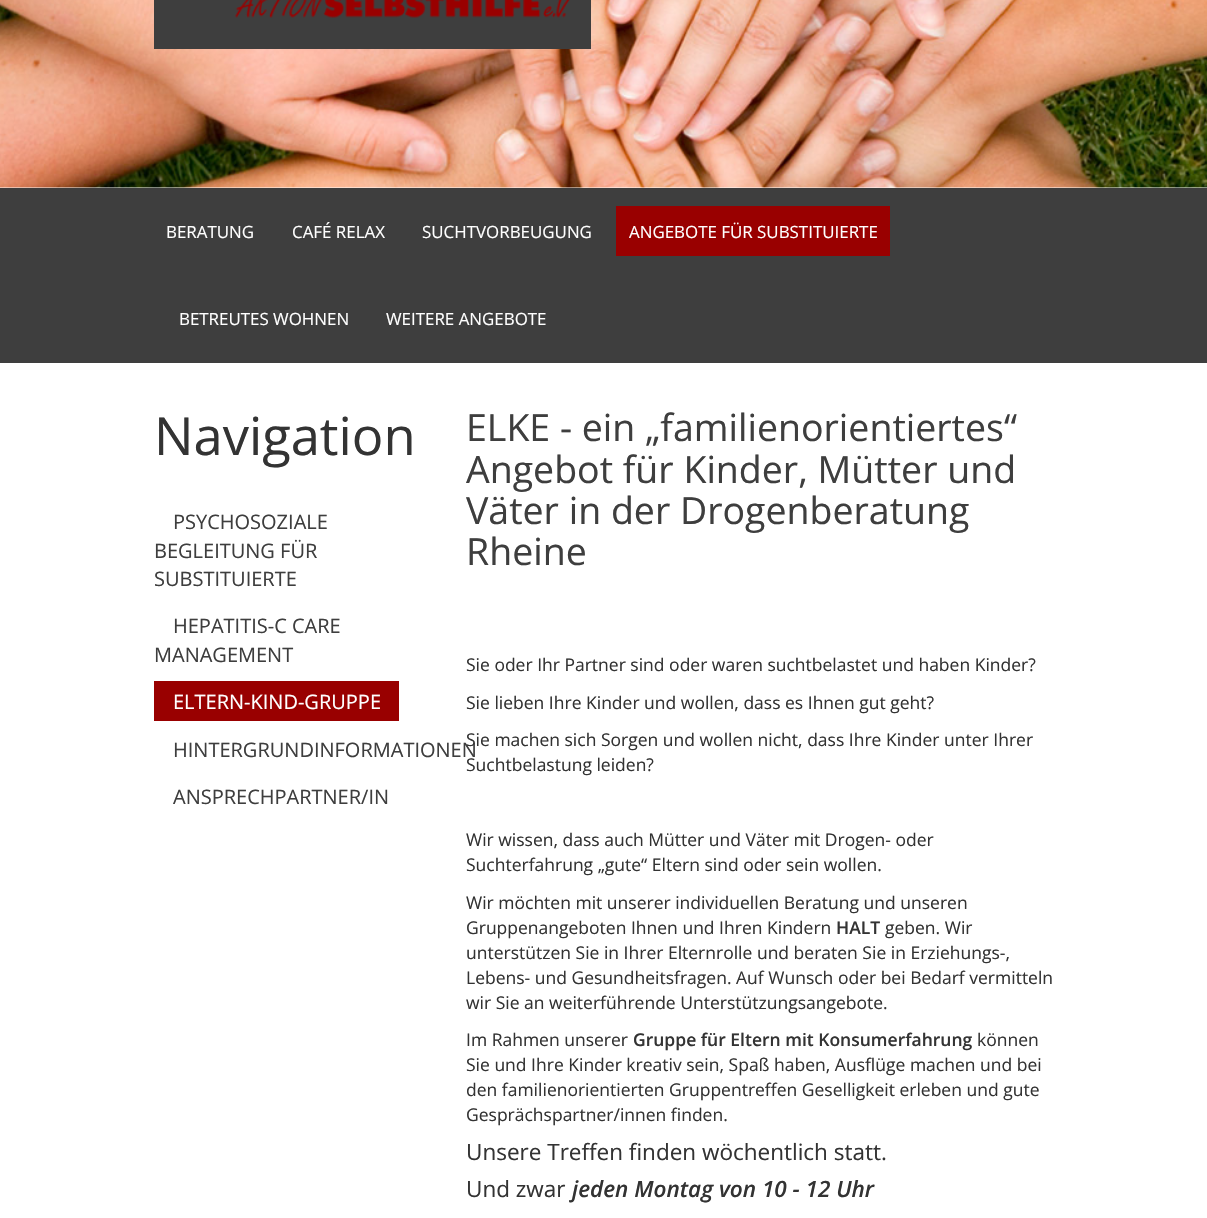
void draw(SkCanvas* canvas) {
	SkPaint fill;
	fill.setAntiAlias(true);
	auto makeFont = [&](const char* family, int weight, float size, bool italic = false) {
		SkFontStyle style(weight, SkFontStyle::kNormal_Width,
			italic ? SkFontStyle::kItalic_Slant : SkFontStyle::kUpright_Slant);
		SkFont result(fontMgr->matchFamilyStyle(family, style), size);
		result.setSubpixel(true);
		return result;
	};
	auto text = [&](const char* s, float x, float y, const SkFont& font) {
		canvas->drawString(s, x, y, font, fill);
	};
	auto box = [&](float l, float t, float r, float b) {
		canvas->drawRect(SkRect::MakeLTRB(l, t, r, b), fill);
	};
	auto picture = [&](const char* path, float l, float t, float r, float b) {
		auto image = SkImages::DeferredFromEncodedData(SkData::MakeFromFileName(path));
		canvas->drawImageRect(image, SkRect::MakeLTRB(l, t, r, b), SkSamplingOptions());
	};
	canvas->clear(0xFFFFFFFF);
	picture("image0.png", 0, 0, 1207, 188);
	fill.setColor(0xFF3E3E3E);
	box(154, 0, 591, 49);
	picture("image1.png", 235, 0, 570, 18);
	box(0, 188, 1207, 363);
	fill.setColor(0xFF990000);
	box(616, 206, 890, 256);
	box(154, 681, 399, 721);
	auto font1 = makeFont("Open Sans", 400, 16.9f);
	fill.setColor(0xFFFFFFFF);
	text("BERATUNG", 166, 238, font1);
	text("CAFÉ RELAX", 292, 238, font1);
	text("SUCHTVORBEUGUNG", 422, 238, font1);
	text("ANGEBOTE FÜR SUBSTITUIERTE", 629, 238, font1);
	text("BETREUTES WOHNEN", 179, 325, font1);
	text("WEITERE ANGEBOTE", 386, 325, font1);
	auto font2 = makeFont("Open Sans", 400, 52.5f);
	fill.setColor(0xFF333333);
	text("Navigation", 154, 455, font2);
	auto font3 = makeFont("Open Sans", 400, 20);
	fill.setColor(0xFF3E3E3E);
	text("PSYCHOSOZIALE", 173, 529, font3);
	text("BEGLEITUNG FÜR", 154, 558, font3);
	text("SUBSTITUIERTE", 154, 586, font3);
	text("HEPATITIS-C CARE", 173, 633, font3);
	text("MANAGEMENT", 154, 662, font3);
	fill.setColor(0xFFFFFFFF);
	text("ELTERN-KIND-GRUPPE", 173, 709, font3);
	fill.setColor(0xFF3E3E3E);
	text("HINTERGRUNDINFORMATIONEN", 173, 757, font3);
	text("ANSPRECHPARTNER/IN", 173, 804, font3);
	auto font4 = makeFont("Open Sans", 400, 37.5f);
	text("ELKE - ein „familienorientiertes“", 466, 441, font4);
	text("Angebot für Kinder, Mütter und", 466, 483, font4);
	text("Väter in der Drogenberatung", 466, 524, font4);
	text("Rheine", 466, 565, font4);
	auto font5 = makeFont("Open Sans", 400, 17.5f);
	fill.setColor(0xFF333333);
	text("Sie oder Ihr Partner sind oder waren suchtbelastet und haben Kinder?", 466, 671, font5);
	text("Sie lieben Ihre Kinder und wollen, dass es Ihnen gut geht?", 466, 709, font5);
	text("Sie machen sich Sorgen und wollen nicht, dass Ihre Kinder unter Ihrer", 466, 746, font5);
	text("Suchtbelastung leiden?", 466, 771, font5);
	text("Wir wissen, dass auch Mütter und Väter mit Drogen- oder", 466, 846, font5);
	text("Suchterfahrung „gute“ Eltern sind oder sein wollen.", 466, 871, font5);
	text("Wir möchten mit unserer individuellen Beratung und unseren", 466, 909, font5);
	text("Gruppenangeboten Ihnen und Ihren Kindern", 466, 934, font5);
	auto font6 = makeFont("Open Sans", 600, 17.5f);
	text("HALT", 836, 934, font6);
	text("geben. Wir", 885, 934, font5);
	text("unterstützen Sie in Ihrer Elternrolle und beraten Sie in Erziehungs-,", 466, 959, font5);
	text("Lebens- und Gesundheitsfragen. Auf Wunsch oder bei Bedarf vermitteln", 466, 984, font5);
	text("wir Sie an weiterführende Unterstützungsangebote.", 466, 1009, font5);
	text("Im Rahmen unserer", 466, 1046, font5);
	text("Gruppe für Eltern mit Konsumerfahrung", 633, 1046, font6);
	text("können", 977, 1046, font5);
	text("Sie und Ihre Kinder kreativ sein, Spaß haben, Ausflüge machen und bei", 466, 1071, font5);
	text("den familienorientierten Gruppentreffen Geselligkeit erleben und gute", 466, 1096, font5);
	text("Gesprächspartner/innen finden.", 466, 1121, font5);
	auto font7 = makeFont("Open Sans", 400, 22.5f);
	text("Unsere Treffen finden wöchentlich statt.", 466, 1160, font7);
	text("Und zwar", 466, 1197, font7);
	auto font8 = makeFont("Open Sans", 600, 22.5f, true);
	text("jeden Montag von 10 - 12 Uhr", 572, 1197, font8);
}
